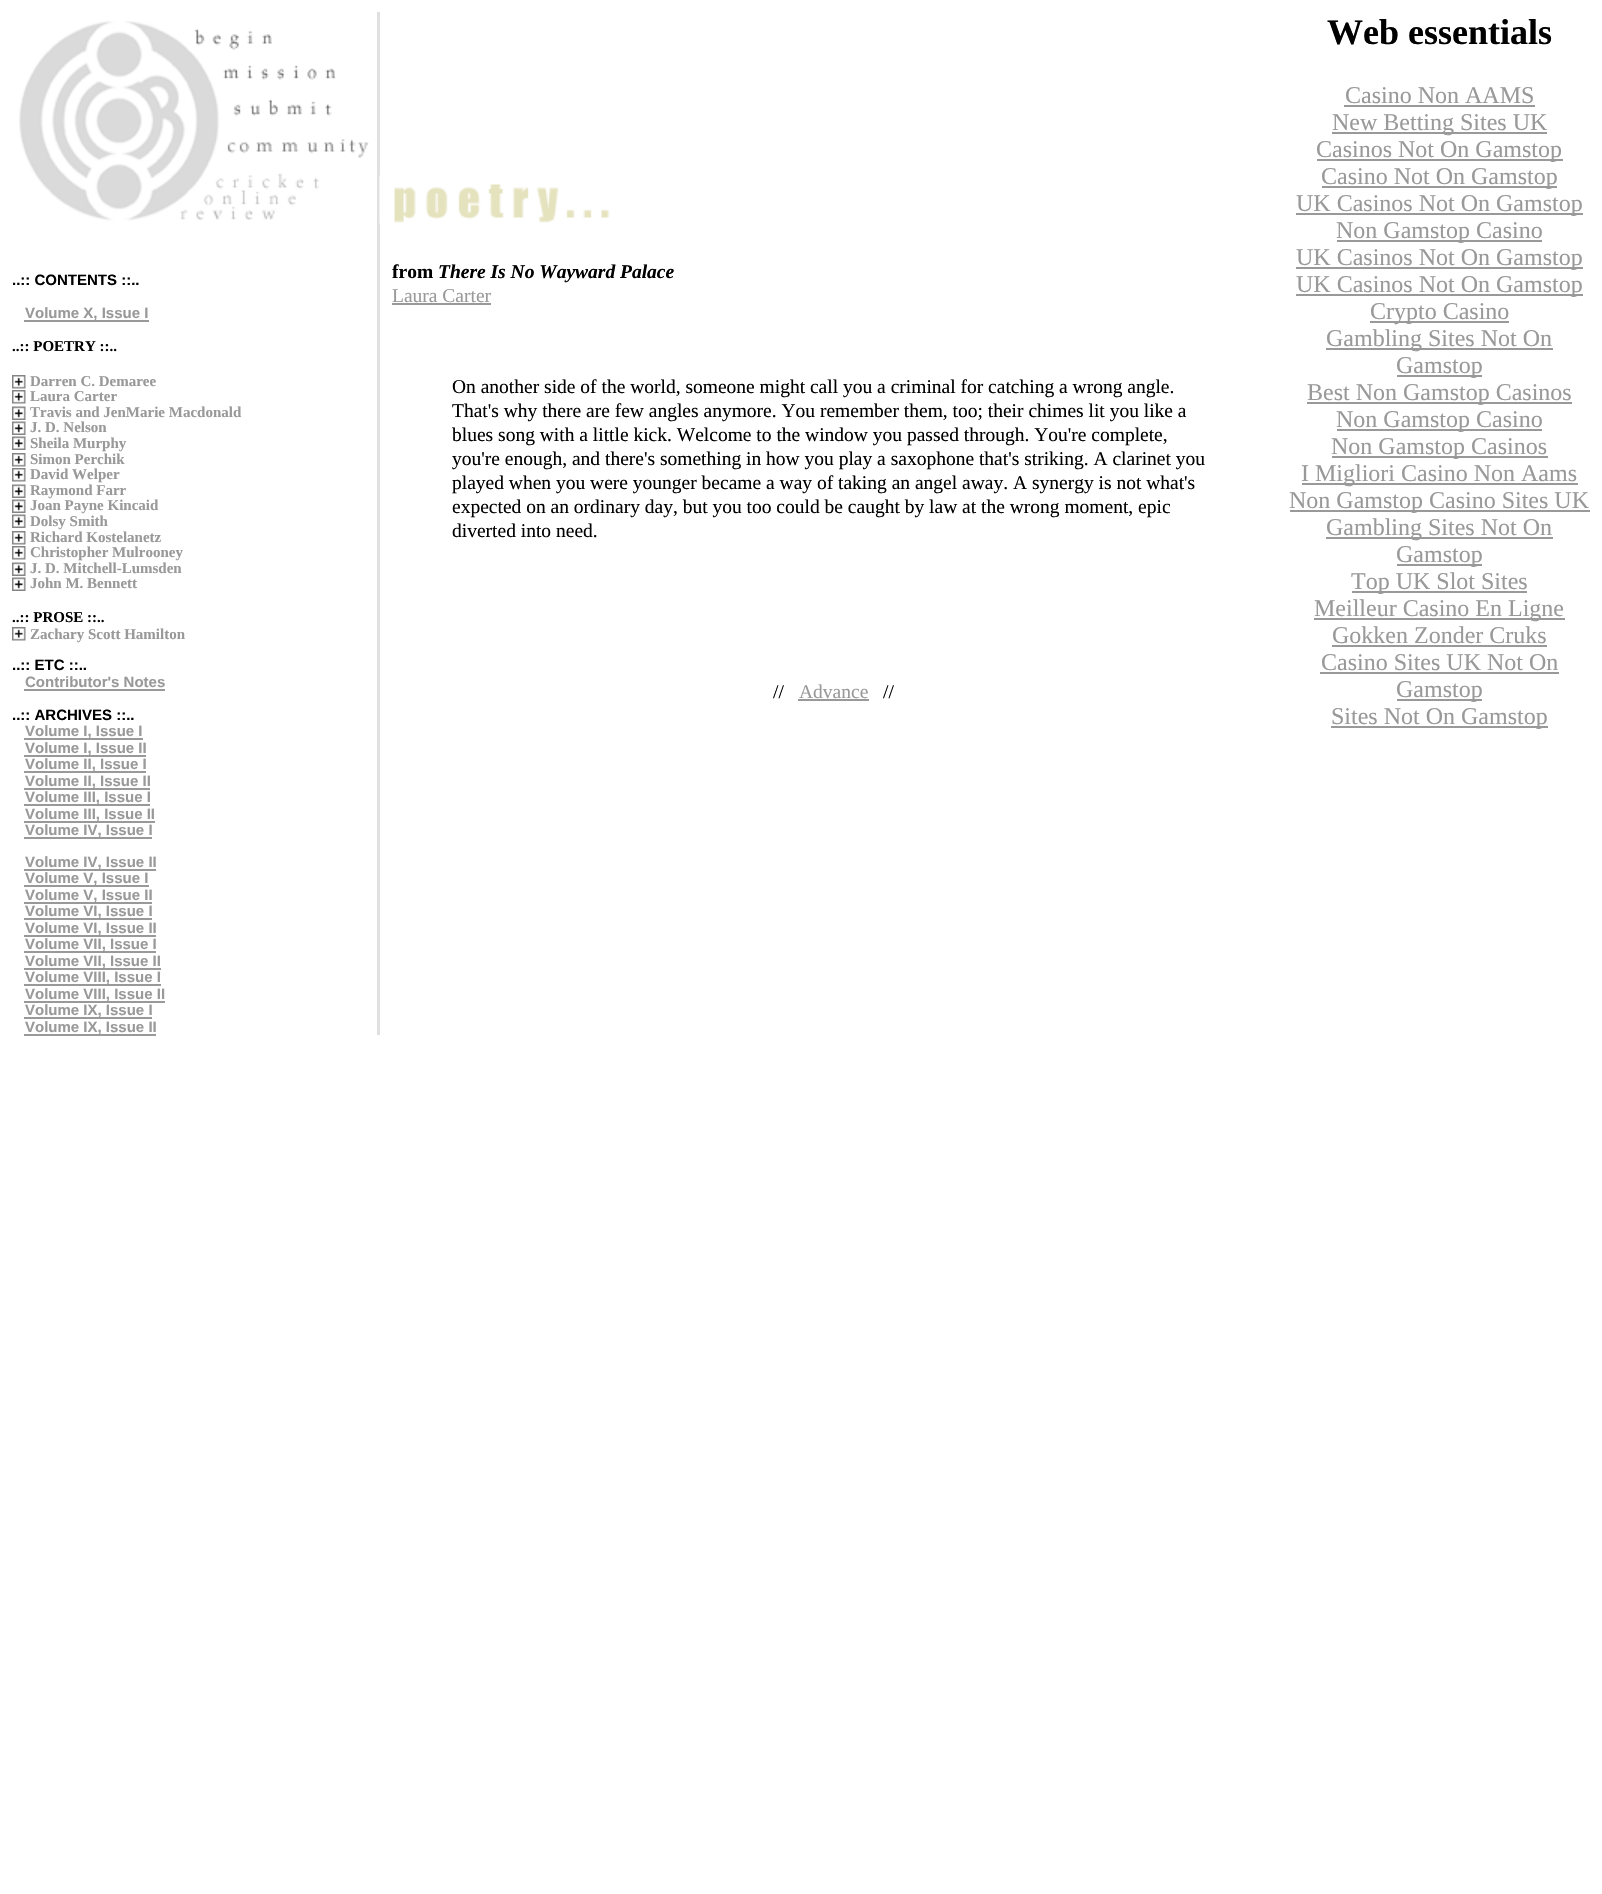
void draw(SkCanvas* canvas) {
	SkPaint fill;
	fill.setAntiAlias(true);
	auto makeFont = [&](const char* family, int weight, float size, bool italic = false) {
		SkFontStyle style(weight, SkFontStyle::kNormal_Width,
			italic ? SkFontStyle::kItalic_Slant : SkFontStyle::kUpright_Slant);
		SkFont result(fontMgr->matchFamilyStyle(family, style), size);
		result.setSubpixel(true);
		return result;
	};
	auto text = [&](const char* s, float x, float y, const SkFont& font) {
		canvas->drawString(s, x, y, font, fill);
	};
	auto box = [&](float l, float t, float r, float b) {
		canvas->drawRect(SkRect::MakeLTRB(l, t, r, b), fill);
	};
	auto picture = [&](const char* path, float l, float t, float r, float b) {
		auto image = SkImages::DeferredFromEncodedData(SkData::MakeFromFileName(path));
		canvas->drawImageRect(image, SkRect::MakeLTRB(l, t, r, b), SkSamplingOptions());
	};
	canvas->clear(0xFFFFFFFF);
	picture("image0.png", 19, 21, 369, 221);
	fill.setColor(0xFF999999);
	box(24, 320, 149, 322);
	picture("image1.png", 12, 375, 26, 389);
	picture("image1.png", 12, 390, 26, 404);
	picture("image2.png", 12, 406, 26, 420);
	picture("image2.png", 12, 421, 26, 435);
	picture("image2.png", 12, 436, 26, 450);
	picture("image1.png", 12, 453, 26, 467);
	picture("image1.png", 12, 468, 26, 482);
	picture("image2.png", 12, 484, 26, 498);
	picture("image2.png", 12, 499, 26, 513);
	picture("image2.png", 12, 514, 26, 528);
	picture("image1.png", 12, 531, 26, 545);
	picture("image1.png", 12, 546, 26, 560);
	picture("image2.png", 12, 562, 26, 576);
	picture("image2.png", 12, 577, 26, 591);
	picture("image1.png", 12, 627, 26, 641);
	box(24, 689, 165, 691);
	box(24, 738, 143, 740);
	box(24, 755, 146, 757);
	box(24, 771, 146, 773);
	box(24, 788, 150, 790);
	box(24, 804, 150, 806);
	box(24, 821, 155, 823);
	box(24, 837, 152, 839);
	box(24, 869, 156, 871);
	box(24, 885, 149, 887);
	box(24, 902, 152, 904);
	box(24, 918, 152, 920);
	box(24, 935, 156, 937);
	box(24, 951, 156, 953);
	box(24, 968, 161, 970);
	box(24, 984, 161, 986);
	box(24, 1001, 165, 1003);
	box(24, 1017, 152, 1019);
	box(24, 1034, 156, 1036);
	fill.setColor(0xFFE0E0E0);
	box(377, 12, 380, 1035);
	picture("image3.png", 379, 175, 610, 224);
	fill.setColor(0xFF999999);
	box(392, 303, 491, 305);
	box(798, 699, 869, 701);
	box(1344, 105, 1535, 107);
	box(1332, 132, 1547, 134);
	box(1317, 159, 1563, 161);
	box(1322, 186, 1557, 188);
	box(1296, 213, 1583, 215);
	box(1337, 240, 1542, 242);
	box(1296, 267, 1583, 269);
	box(1296, 294, 1583, 296);
	box(1370, 321, 1509, 323);
	box(1326, 348, 1553, 350);
	box(1397, 375, 1482, 377);
	box(1307, 402, 1572, 404);
	box(1337, 429, 1542, 431);
	box(1332, 456, 1548, 458);
	box(1302, 483, 1578, 485);
	box(1290, 510, 1590, 512);
	box(1326, 537, 1553, 539);
	box(1397, 564, 1482, 566);
	box(1352, 591, 1527, 593);
	box(1314, 618, 1565, 620);
	box(1332, 645, 1547, 647);
	box(1320, 672, 1559, 674);
	box(1397, 699, 1482, 701);
	box(1331, 726, 1548, 728);
	auto font1 = makeFont("Liberation Sans", 700, 15);
	fill.setColor(0xFF000000);
	text("..:: CONTENTS ::..", 12, 285, font1);
	fill.setColor(0xFF999999);
	text("Volume X, Issue I", 25, 318, font1);
	auto font2 = makeFont("Liberation Serif", 700, 15);
	fill.setColor(0xFF000000);
	text("..:: POETRY ::..", 12, 351, font2);
	fill.setColor(0xFF999999);
	text("Darren C. Demaree", 30, 386, font2);
	text("Laura Carter", 30, 401, font2);
	text("Travis and JenMarie Macdonald", 30, 417, font2);
	text("J. D. Nelson", 30, 432, font2);
	text("Sheila Murphy", 30, 448, font2);
	text("Simon Perchik", 30, 464, font2);
	text("David Welper", 30, 479, font2);
	text("Raymond Farr", 30, 495, font2);
	text("Joan Payne Kincaid", 30, 510, font2);
	text("Dolsy Smith", 30, 526, font2);
	text("Richard Kostelanetz", 30, 542, font2);
	text("Christopher Mulrooney", 30, 557, font2);
	text("J. D. Mitchell-Lumsden", 30, 573, font2);
	text("John M. Bennett", 30, 588, font2);
	fill.setColor(0xFF000000);
	text("..:: PROSE ::..", 12, 622, font2);
	fill.setColor(0xFF999999);
	text("Zachary Scott Hamilton", 30, 639, font2);
	fill.setColor(0xFF000000);
	text("..:: ETC ::..", 12, 670, font1);
	fill.setColor(0xFF999999);
	text("Contributor's Notes", 25, 687, font1);
	fill.setColor(0xFF000000);
	text("..:: ARCHIVES ::..", 12, 720, font1);
	fill.setColor(0xFF999999);
	text("Volume I, Issue I", 25, 736, font1);
	text("Volume I, Issue II", 25, 753, font1);
	text("Volume II, Issue I", 25, 769, font1);
	text("Volume II, Issue II", 25, 786, font1);
	text("Volume III, Issue I", 25, 802, font1);
	text("Volume III, Issue II", 25, 819, font1);
	text("Volume IV, Issue I", 25, 835, font1);
	text("Volume IV, Issue II", 25, 867, font1);
	text("Volume V, Issue I", 25, 883, font1);
	text("Volume V, Issue II", 25, 900, font1);
	text("Volume VI, Issue I", 25, 916, font1);
	text("Volume VI, Issue II", 25, 933, font1);
	text("Volume VII, Issue I", 25, 949, font1);
	text("Volume VII, Issue II", 25, 966, font1);
	text("Volume VIII, Issue I", 25, 982, font1);
	text("Volume VIII, Issue II", 25, 999, font1);
	text("Volume IX, Issue I", 25, 1015, font1);
	text("Volume IX, Issue II", 25, 1032, font1);
	auto font3 = makeFont("Liberation Serif", 700, 19.5f);
	fill.setColor(0xFF000000);
	text("from", 392, 278, font3);
	auto font4 = makeFont("Liberation Serif", 700, 19.5f, true);
	text("There Is No Wayward Palace", 438, 278, font4);
	auto font5 = makeFont("Liberation Serif", 400, 19.5f);
	fill.setColor(0xFF999999);
	text("Laura Carter", 392, 302, font5);
	fill.setColor(0xFF000000);
	text("On another side of the world, someone might call you a criminal for catching a wrong angle.", 452, 393, font5);
	text("That's why there are few angles anymore. You remember them, too; their chimes lit you like a", 452, 417, font5);
	text("blues song with a little kick. Welcome to the window you passed through. You're complete,", 452, 441, font5);
	text("you're enough, and there's something in how you play a saxophone that's striking. A clarinet you", 452, 465, font5);
	text("played when you were younger became a way of taking an angel away. A synergy is not what's", 452, 489, font5);
	text("expected on an ordinary day, but you too could be caught by law at the wrong moment, epic", 452, 513, font5);
	text("diverted into need.", 452, 537, font5);
	text("//", 773, 698, font5);
	fill.setColor(0xFF999999);
	text("Advance", 799, 698, font5);
	fill.setColor(0xFF000000);
	text("//", 883, 698, font5);
	auto font6 = makeFont("Liberation Serif", 700, 36);
	text("Web essentials", 1327, 44, font6);
	auto font7 = makeFont("Liberation Serif", 400, 24);
	fill.setColor(0xFF999999);
	text("Casino Non AAMS", 1345, 103, font7);
	text("New Betting Sites UK", 1332, 130, font7);
	text("Casinos Not On Gamstop", 1316, 157, font7);
	text("Casino Not On Gamstop", 1321, 184, font7);
	text("UK Casinos Not On Gamstop", 1296, 211, font7);
	text("Non Gamstop Casino", 1336, 238, font7);
	text("UK Casinos Not On Gamstop", 1296, 265, font7);
	text("UK Casinos Not On Gamstop", 1296, 292, font7);
	text("Crypto Casino", 1370, 319, font7);
	text("Gambling Sites Not On", 1326, 346, font7);
	text("Gamstop", 1396, 373, font7);
	text("Best Non Gamstop Casinos", 1307, 400, font7);
	text("Non Gamstop Casino", 1336, 427, font7);
	text("Non Gamstop Casinos", 1331, 454, font7);
	text("I Migliori Casino Non Aams", 1301, 481, font7);
	text("Non Gamstop Casino Sites UK", 1289, 508, font7);
	text("Gambling Sites Not On", 1326, 535, font7);
	text("Gamstop", 1396, 562, font7);
	text("Top UK Slot Sites", 1351, 589, font7);
	text("Meilleur Casino En Ligne", 1314, 616, font7);
	text("Gokken Zonder Cruks", 1332, 643, font7);
	text("Casino Sites UK Not On", 1321, 670, font7);
	text("Gamstop", 1396, 697, font7);
	text("Sites Not On Gamstop", 1331, 724, font7);
}
